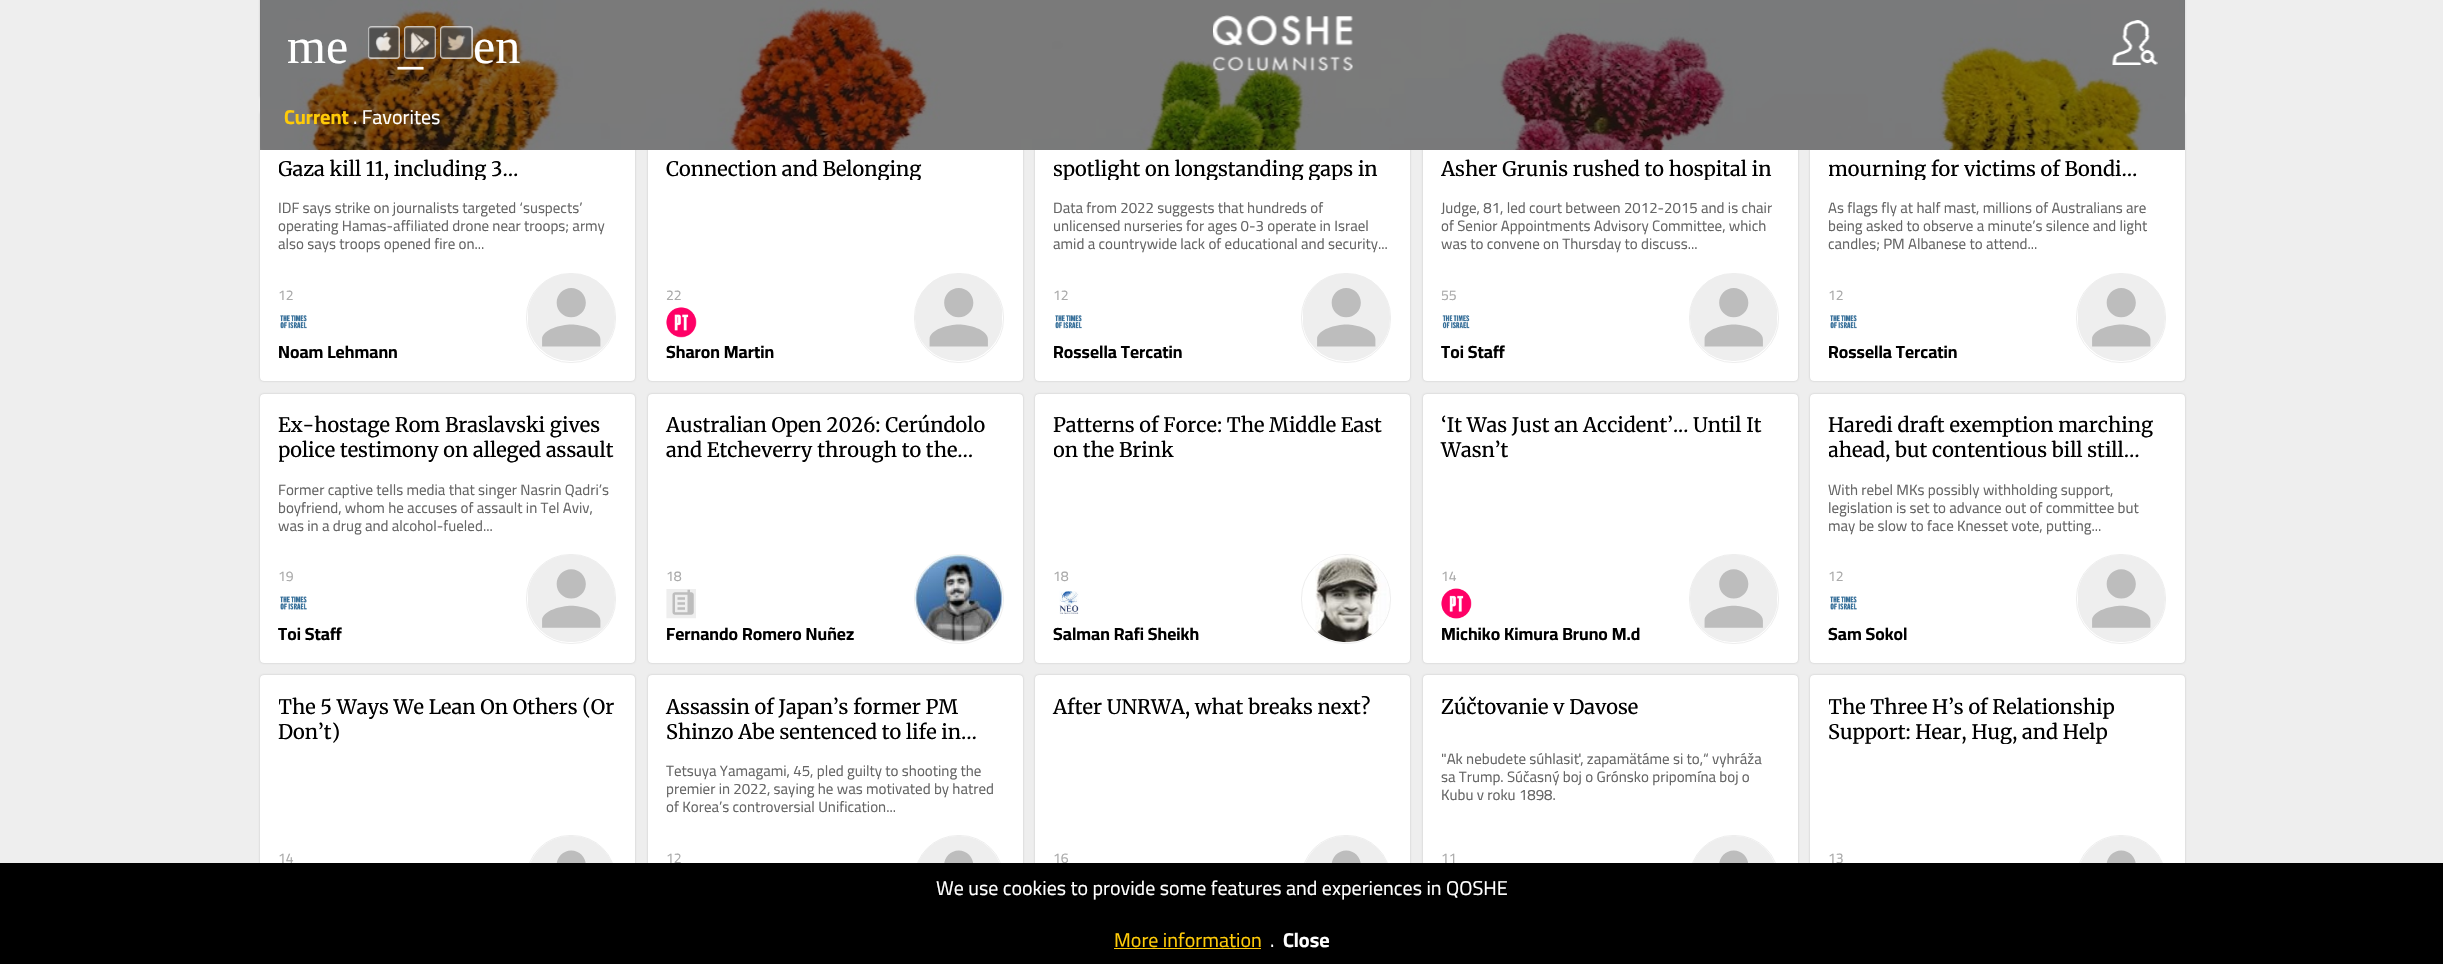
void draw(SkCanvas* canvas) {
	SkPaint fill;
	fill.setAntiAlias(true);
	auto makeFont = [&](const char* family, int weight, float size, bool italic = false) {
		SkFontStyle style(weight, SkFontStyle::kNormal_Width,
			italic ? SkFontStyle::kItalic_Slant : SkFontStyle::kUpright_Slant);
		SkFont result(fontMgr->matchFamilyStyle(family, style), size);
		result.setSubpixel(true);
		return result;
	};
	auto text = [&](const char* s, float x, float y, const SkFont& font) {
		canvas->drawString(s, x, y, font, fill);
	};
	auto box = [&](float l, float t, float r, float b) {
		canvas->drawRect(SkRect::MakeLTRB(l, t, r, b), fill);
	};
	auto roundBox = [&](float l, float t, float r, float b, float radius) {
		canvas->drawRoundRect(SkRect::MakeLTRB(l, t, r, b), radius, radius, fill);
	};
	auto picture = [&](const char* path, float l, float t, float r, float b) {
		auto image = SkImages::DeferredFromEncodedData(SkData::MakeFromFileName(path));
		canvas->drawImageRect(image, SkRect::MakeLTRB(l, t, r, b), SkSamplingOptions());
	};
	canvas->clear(0xFFEEEEEE);
	fill.setColor(0x33000000);
	fill.setMaskFilter(SkMaskFilter::MakeBlur(kNormal_SkBlurStyle, 1));
	canvas->drawRoundRect(SkRect::MakeLTRB(260, -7, 635, 99), 4, 4, fill);
	fill.setMaskFilter(nullptr);
	fill.setMaskFilter(SkMaskFilter::MakeBlur(kNormal_SkBlurStyle, 1));
	canvas->drawRoundRect(SkRect::MakeLTRB(1810, -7, 2185, 99), 4, 4, fill);
	fill.setMaskFilter(nullptr);
	fill.setMaskFilter(SkMaskFilter::MakeBlur(kNormal_SkBlurStyle, 1));
	canvas->drawRoundRect(SkRect::MakeLTRB(260, 111, 635, 381), 4, 4, fill);
	fill.setMaskFilter(nullptr);
	fill.setColor(0xFFFFFFFF);
	roundBox(260, 111, 635, 381, 4);
	fill.setColor(0x33000000);
	fill.setMaskFilter(SkMaskFilter::MakeBlur(kNormal_SkBlurStyle, 1));
	canvas->drawRoundRect(SkRect::MakeLTRB(648, 111, 1023, 381), 4, 4, fill);
	fill.setMaskFilter(nullptr);
	fill.setColor(0xFFFFFFFF);
	roundBox(648, 111, 1023, 381, 4);
	fill.setColor(0x33000000);
	fill.setMaskFilter(SkMaskFilter::MakeBlur(kNormal_SkBlurStyle, 1));
	canvas->drawRoundRect(SkRect::MakeLTRB(1035, 111, 1410, 381), 4, 4, fill);
	fill.setMaskFilter(nullptr);
	fill.setColor(0xFFFFFFFF);
	roundBox(1035, 111, 1410, 381, 4);
	fill.setColor(0x33000000);
	fill.setMaskFilter(SkMaskFilter::MakeBlur(kNormal_SkBlurStyle, 1));
	canvas->drawRoundRect(SkRect::MakeLTRB(1423, 111, 1798, 381), 4, 4, fill);
	fill.setMaskFilter(nullptr);
	fill.setColor(0xFFFFFFFF);
	roundBox(1423, 111, 1798, 381, 4);
	fill.setColor(0x33000000);
	fill.setMaskFilter(SkMaskFilter::MakeBlur(kNormal_SkBlurStyle, 1));
	canvas->drawRoundRect(SkRect::MakeLTRB(1810, 111, 2185, 381), 4, 4, fill);
	fill.setMaskFilter(nullptr);
	fill.setColor(0xFFFFFFFF);
	roundBox(1810, 111, 2185, 381, 4);
	picture("image3.png", 260, 0, 2186, 150);
	fill.setColor(0x80000000);
	box(260, 0, 2185, 150);
	fill.setColor(0x99FFFFFF);
	roundBox(368, 26, 400, 59, 4);
	fill.setStyle(SkPaint::kStroke_Style);
	fill.setStrokeWidth(1);
	fill.setColor(0x99CCCCCC);
	canvas->drawRoundRect(SkRect::MakeLTRB(368.5f, 26.5f, 399.5f, 58.5f), 3.5f, 3.5f, fill);
	picture("image0.png", 368, 27, 400, 58);
	fill.setStyle(SkPaint::kFill_Style);
	fill.setColor(0x99FFFFFF);
	roundBox(404, 26, 436, 59, 4);
	fill.setStyle(SkPaint::kStroke_Style);
	fill.setColor(0x99CCCCCC);
	canvas->drawRoundRect(SkRect::MakeLTRB(404.5f, 26.5f, 435.5f, 58.5f), 3.5f, 3.5f, fill);
	picture("image1.png", 404, 27, 436, 58);
	fill.setStyle(SkPaint::kFill_Style);
	fill.setColor(0x99FFFFFF);
	roundBox(440, 26, 473, 59, 4);
	fill.setStyle(SkPaint::kStroke_Style);
	fill.setColor(0x99CCCCCC);
	canvas->drawRoundRect(SkRect::MakeLTRB(440.5f, 26.5f, 472.5f, 58.5f), 3.5f, 3.5f, fill);
	picture("image2.png", 441, 27, 472, 58);
	picture("image4.png", 1213, 15, 1353, 72);
	picture("image5.png", 2112, 20, 2158, 65);
	picture("image6.png", 280, 315, 307, 329);
	fill.setColor(0xFFEEEEEE);
	canvas->drawRoundRect(SkRect::MakeLTRB(526.5f, 273.5f, 615.5f, 362.5f), 43.5f, 43.5f, fill);
	picture("image7.png", 528, 274, 615, 361);
	picture("image8.png", 666, 307, 697, 338);
	canvas->drawRoundRect(SkRect::MakeLTRB(914.5f, 273.5f, 1003.5f, 362.5f), 43.5f, 43.5f, fill);
	picture("image9.png", 915, 274, 1002, 361);
	picture("image6.png", 1055, 315, 1082, 329);
	canvas->drawRoundRect(SkRect::MakeLTRB(1301.5f, 273.5f, 1390.5f, 362.5f), 43.5f, 43.5f, fill);
	picture("image7.png", 1303, 274, 1390, 361);
	picture("image10.png", 1442, 315, 1470, 329);
	canvas->drawRoundRect(SkRect::MakeLTRB(1689.5f, 273.5f, 1778.5f, 362.5f), 43.5f, 43.5f, fill);
	picture("image9.png", 1690, 274, 1777, 361);
	picture("image6.png", 1830, 315, 1857, 329);
	canvas->drawRoundRect(SkRect::MakeLTRB(2076.5f, 273.5f, 2165.5f, 362.5f), 43.5f, 43.5f, fill);
	picture("image7.png", 2078, 274, 2165, 361);
	fill.setStyle(SkPaint::kFill_Style);
	fill.setColor(0x33000000);
	fill.setMaskFilter(SkMaskFilter::MakeBlur(kNormal_SkBlurStyle, 1));
	canvas->drawRoundRect(SkRect::MakeLTRB(260, 394, 635, 663), 4, 4, fill);
	fill.setMaskFilter(nullptr);
	fill.setColor(0xFFFFFFFF);
	roundBox(260, 394, 635, 663, 4);
	picture("image11.png", 280, 596, 307, 610);
	fill.setStyle(SkPaint::kStroke_Style);
	fill.setColor(0xFFEEEEEE);
	canvas->drawRoundRect(SkRect::MakeLTRB(526.5f, 554.5f, 615.5f, 643.5f), 43.5f, 43.5f, fill);
	picture("image12.png", 528, 555, 615, 642);
	fill.setStyle(SkPaint::kFill_Style);
	fill.setColor(0x33000000);
	fill.setMaskFilter(SkMaskFilter::MakeBlur(kNormal_SkBlurStyle, 1));
	canvas->drawRoundRect(SkRect::MakeLTRB(648, 394, 1023, 663), 4, 4, fill);
	fill.setMaskFilter(nullptr);
	fill.setColor(0xFFFFFFFF);
	roundBox(648, 394, 1023, 663, 4);
	picture("image13.png", 666, 589, 696, 619);
	fill.setStyle(SkPaint::kStroke_Style);
	fill.setColor(0xFFEEEEEE);
	canvas->drawRoundRect(SkRect::MakeLTRB(914.5f, 554.5f, 1003.5f, 643.5f), 43.5f, 43.5f, fill);
	picture("image14.png", 915, 555, 1003, 642);
	fill.setStyle(SkPaint::kFill_Style);
	fill.setColor(0x33000000);
	fill.setMaskFilter(SkMaskFilter::MakeBlur(kNormal_SkBlurStyle, 1));
	canvas->drawRoundRect(SkRect::MakeLTRB(1035, 394, 1410, 663), 4, 4, fill);
	fill.setMaskFilter(nullptr);
	fill.setColor(0xFFFFFFFF);
	roundBox(1035, 394, 1410, 663, 4);
	picture("image15.png", 1059, 591, 1079, 614);
	fill.setStyle(SkPaint::kStroke_Style);
	fill.setColor(0xFFEEEEEE);
	canvas->drawRoundRect(SkRect::MakeLTRB(1301.5f, 554.5f, 1390.5f, 643.5f), 43.5f, 43.5f, fill);
	picture("image16.png", 1315, 555, 1389, 643);
	fill.setStyle(SkPaint::kFill_Style);
	fill.setColor(0x33000000);
	fill.setMaskFilter(SkMaskFilter::MakeBlur(kNormal_SkBlurStyle, 1));
	canvas->drawRoundRect(SkRect::MakeLTRB(1423, 394, 1798, 663), 4, 4, fill);
	fill.setMaskFilter(nullptr);
	fill.setColor(0xFFFFFFFF);
	roundBox(1423, 394, 1798, 663, 4);
	picture("image17.png", 1441, 588, 1472, 619);
	fill.setStyle(SkPaint::kStroke_Style);
	fill.setColor(0xFFEEEEEE);
	canvas->drawRoundRect(SkRect::MakeLTRB(1689.5f, 554.5f, 1778.5f, 643.5f), 43.5f, 43.5f, fill);
	picture("image18.png", 1690, 555, 1777, 642);
	fill.setStyle(SkPaint::kFill_Style);
	fill.setColor(0x33000000);
	fill.setMaskFilter(SkMaskFilter::MakeBlur(kNormal_SkBlurStyle, 1));
	canvas->drawRoundRect(SkRect::MakeLTRB(1810, 394, 2185, 663), 4, 4, fill);
	fill.setMaskFilter(nullptr);
	fill.setColor(0xFFFFFFFF);
	roundBox(1810, 394, 2185, 663, 4);
	picture("image11.png", 1830, 596, 1857, 610);
	fill.setStyle(SkPaint::kStroke_Style);
	fill.setColor(0xFFEEEEEE);
	canvas->drawRoundRect(SkRect::MakeLTRB(2076.5f, 554.5f, 2165.5f, 643.5f), 43.5f, 43.5f, fill);
	picture("image12.png", 2078, 555, 2165, 642);
	fill.setStyle(SkPaint::kFill_Style);
	fill.setColor(0x33000000);
	fill.setMaskFilter(SkMaskFilter::MakeBlur(kNormal_SkBlurStyle, 1));
	canvas->drawRoundRect(SkRect::MakeLTRB(260, 675, 635, 944), 4, 4, fill);
	fill.setMaskFilter(nullptr);
	fill.setColor(0xFFFFFFFF);
	roundBox(260, 675, 635, 944, 4);
	fill.setStyle(SkPaint::kStroke_Style);
	fill.setColor(0xFFEEEEEE);
	canvas->drawRoundRect(SkRect::MakeLTRB(526.5f, 835.5f, 615.5f, 924.5f), 43.5f, 43.5f, fill);
	picture("image19.png", 530, 836, 612, 863);
	fill.setStyle(SkPaint::kFill_Style);
	fill.setColor(0x33000000);
	fill.setMaskFilter(SkMaskFilter::MakeBlur(kNormal_SkBlurStyle, 1));
	canvas->drawRoundRect(SkRect::MakeLTRB(648, 675, 1023, 944), 4, 4, fill);
	fill.setMaskFilter(nullptr);
	fill.setColor(0xFFFFFFFF);
	roundBox(648, 675, 1023, 944, 4);
	fill.setStyle(SkPaint::kStroke_Style);
	fill.setColor(0xFFEEEEEE);
	canvas->drawRoundRect(SkRect::MakeLTRB(914.5f, 835.5f, 1003.5f, 924.5f), 43.5f, 43.5f, fill);
	picture("image20.png", 917, 836, 1000, 863);
	fill.setStyle(SkPaint::kFill_Style);
	fill.setColor(0x33000000);
	fill.setMaskFilter(SkMaskFilter::MakeBlur(kNormal_SkBlurStyle, 1));
	canvas->drawRoundRect(SkRect::MakeLTRB(1035, 675, 1410, 944), 4, 4, fill);
	fill.setMaskFilter(nullptr);
	fill.setColor(0xFFFFFFFF);
	roundBox(1035, 675, 1410, 944, 4);
	fill.setStyle(SkPaint::kStroke_Style);
	fill.setColor(0xFFEEEEEE);
	canvas->drawRoundRect(SkRect::MakeLTRB(1301.5f, 835.5f, 1390.5f, 924.5f), 43.5f, 43.5f, fill);
	picture("image19.png", 1305, 836, 1387, 863);
	fill.setStyle(SkPaint::kFill_Style);
	fill.setColor(0x33000000);
	fill.setMaskFilter(SkMaskFilter::MakeBlur(kNormal_SkBlurStyle, 1));
	canvas->drawRoundRect(SkRect::MakeLTRB(1423, 675, 1798, 944), 4, 4, fill);
	fill.setMaskFilter(nullptr);
	fill.setColor(0xFFFFFFFF);
	roundBox(1423, 675, 1798, 944, 4);
	fill.setStyle(SkPaint::kStroke_Style);
	fill.setColor(0xFFEEEEEE);
	canvas->drawRoundRect(SkRect::MakeLTRB(1689.5f, 835.5f, 1778.5f, 924.5f), 43.5f, 43.5f, fill);
	picture("image20.png", 1692, 836, 1775, 863);
	fill.setStyle(SkPaint::kFill_Style);
	fill.setColor(0x33000000);
	fill.setMaskFilter(SkMaskFilter::MakeBlur(kNormal_SkBlurStyle, 1));
	canvas->drawRoundRect(SkRect::MakeLTRB(1810, 675, 2185, 944), 4, 4, fill);
	fill.setMaskFilter(nullptr);
	fill.setColor(0xFFFFFFFF);
	roundBox(1810, 675, 2185, 944, 4);
	fill.setStyle(SkPaint::kStroke_Style);
	fill.setColor(0xFFEEEEEE);
	canvas->drawRoundRect(SkRect::MakeLTRB(2076.5f, 835.5f, 2165.5f, 924.5f), 43.5f, 43.5f, fill);
	picture("image19.png", 2080, 836, 2162, 863);
	auto font1 = makeFont("Liberation Serif", 400, 50);
	fill.setStyle(SkPaint::kFill_Style);
	fill.setColor(0xFFFFFFFF);
	text("me", 287, 63, font1);
	text("en", 473, 63, font1);
	text("_", 398, 63, font1);
	auto font2 = makeFont("Cairo", 700, 20);
	fill.setColor(0xFFFFCB08);
	text("Current", 284, 124, font2);
	auto font3 = makeFont("Cairo", 400, 20);
	fill.setColor(0xFFFFFFFF);
	text(". Favorites", 353, 124, font3);
	canvas->save();
	canvas->clipRect(SkRect::MakeLTRB(279, 130, 616, 180));
	auto font4 = makeFont("Merriweather", 400, 20);
	fill.setColor(0xFF000000);
	text("Gaza kill 11, including 3…", 278, 176, font4);
	canvas->restore();
	auto font5 = makeFont("Cairo", 400, 15);
	fill.setColor(0xFF666666);
	text("IDF says strike on journalists targeted ‘suspects’", 278, 213, font5);
	text("operating Hamas-affiliated drone near troops; army", 278, 231, font5);
	text("also says troops opened fire on...", 278, 249, font5);
	auto font6 = makeFont("Cairo", 400, 14);
	fill.setColor(0xFFAAAAAA);
	text("12", 278, 300, font6);
	auto font7 = makeFont("Cairo", 700, 17.5f);
	fill.setColor(0xFF000000);
	text("Noam Lehmann", 278, 358, font7);
	canvas->save();
	canvas->clipRect(SkRect::MakeLTRB(666, 130, 1004, 180));
	text("Connection and Belonging", 666, 176, font4);
	canvas->restore();
	fill.setColor(0xFFAAAAAA);
	text("22", 666, 300, font6);
	fill.setColor(0xFF000000);
	text("Sharon Martin", 666, 358, font7);
	canvas->save();
	canvas->clipRect(SkRect::MakeLTRB(1054, 130, 1391, 180));
	text("spotlight on longstanding gaps in", 1053, 176, font4);
	canvas->restore();
	fill.setColor(0xFF666666);
	text("Data from 2022 suggests that hundreds of", 1053, 213, font5);
	text("unlicensed nurseries for ages 0-3 operate in Israel", 1053, 231, font5);
	text("amid a countrywide lack of educational and security...", 1053, 249, font5);
	fill.setColor(0xFFAAAAAA);
	text("12", 1053, 300, font6);
	fill.setColor(0xFF000000);
	text("Rossella Tercatin", 1053, 358, font7);
	canvas->save();
	canvas->clipRect(SkRect::MakeLTRB(1441, 130, 1779, 180));
	text("Asher Grunis rushed to hospital in", 1441, 176, font4);
	canvas->restore();
	fill.setColor(0xFF666666);
	text("Judge, 81, led court between 2012-2015 and is chair", 1441, 213, font5);
	text("of Senior Appointments Advisory Committee, which", 1441, 231, font5);
	text("was to convene on Thursday to discuss...", 1441, 249, font5);
	fill.setColor(0xFFAAAAAA);
	text("55", 1441, 300, font6);
	fill.setColor(0xFF000000);
	text("Toi Staff", 1441, 358, font7);
	canvas->save();
	canvas->clipRect(SkRect::MakeLTRB(1829, 130, 2166, 180));
	text("mourning for victims of Bondi…", 1828, 176, font4);
	canvas->restore();
	fill.setColor(0xFF666666);
	text("As flags fly at half mast, millions of Australians are", 1828, 213, font5);
	text("being asked to observe a minute’s silence and light", 1828, 231, font5);
	text("candles; PM Albanese to attend...", 1828, 249, font5);
	fill.setColor(0xFFAAAAAA);
	text("12", 1828, 300, font6);
	fill.setColor(0xFF000000);
	text("Rossella Tercatin", 1828, 358, font7);
	text("Ex-hostage Rom Braslavski gives", 278, 432, font4);
	canvas->save();
	canvas->clipRect(SkRect::MakeLTRB(279, 413, 616, 463));
	text("police testimony on alleged assault", 278, 457, font4);
	canvas->restore();
	fill.setColor(0xFF666666);
	text("Former captive tells media that singer Nasrin Qadri’s", 278, 495, font5);
	text("boyfriend, whom he accuses of assault in Tel Aviv,", 278, 513, font5);
	text("was in a drug and alcohol-fueled...", 278, 531, font5);
	fill.setColor(0xFFAAAAAA);
	text("19", 278, 581, font6);
	fill.setColor(0xFF000000);
	text("Toi Staff", 278, 640, font7);
	text("Australian Open 2026: Cerúndolo", 666, 432, font4);
	text("and Etcheverry through to the…", 666, 457, font4);
	fill.setColor(0xFFAAAAAA);
	text("18", 666, 581, font6);
	fill.setColor(0xFF000000);
	text("Fernando Romero Nuñez", 666, 640, font7);
	text("Patterns of Force: The Middle East", 1053, 432, font4);
	canvas->save();
	canvas->clipRect(SkRect::MakeLTRB(1054, 413, 1391, 463));
	text("on the Brink", 1053, 457, font4);
	canvas->restore();
	fill.setColor(0xFFAAAAAA);
	text("18", 1053, 581, font6);
	fill.setColor(0xFF000000);
	text("Salman Rafi Sheikh", 1053, 640, font7);
	text("‘It Was Just an Accident’... Until It", 1441, 432, font4);
	text("Wasn’t", 1441, 457, font4);
	fill.setColor(0xFFAAAAAA);
	text("14", 1441, 581, font6);
	fill.setColor(0xFF000000);
	text("Michiko Kimura Bruno M.d", 1441, 640, font7);
	text("Haredi draft exemption marching", 1828, 432, font4);
	canvas->save();
	canvas->clipRect(SkRect::MakeLTRB(1829, 413, 2166, 463));
	text("ahead, but contentious bill still…", 1828, 457, font4);
	canvas->restore();
	fill.setColor(0xFF666666);
	text("With rebel MKs possibly withholding support,", 1828, 495, font5);
	text("legislation is set to advance out of committee but", 1828, 513, font5);
	text("may be slow to face Knesset vote, putting...", 1828, 531, font5);
	fill.setColor(0xFFAAAAAA);
	text("12", 1828, 581, font6);
	fill.setColor(0xFF000000);
	text("Sam Sokol", 1828, 640, font7);
	canvas->save();
	canvas->clipRect(SkRect::MakeLTRB(279, 694, 616, 744));
	text("The 5 Ways We Lean On Others (Or", 278, 714, font4);
	canvas->restore();
	text("Don’t)", 278, 739, font4);
	fill.setColor(0xFFAAAAAA);
	text("14", 278, 863, font6);
	fill.setColor(0xFF000000);
	text("Assassin of Japan’s former PM", 666, 714, font4);
	text("Shinzo Abe sentenced to life in…", 666, 739, font4);
	fill.setColor(0xFF666666);
	text("Tetsuya Yamagami, 45, pled guilty to shooting the", 666, 776, font5);
	text("premier in 2022, saying he was motivated by hatred", 666, 794, font5);
	text("of Korea’s controversial Unification...", 666, 812, font5);
	fill.setColor(0xFFAAAAAA);
	text("12", 666, 863, font6);
	fill.setColor(0xFF000000);
	text("After UNRWA, what breaks next?", 1053, 714, font4);
	fill.setColor(0xFFAAAAAA);
	text("16", 1053, 863, font6);
	fill.setColor(0xFF000000);
	text("Zúčtovanie v Davose", 1441, 714, font4);
	fill.setColor(0xFF666666);
	text("\"Ak nebudete súhlasiť, zapamätáme si to,“ vyhráža", 1441, 764, font5);
	text("sa Trump. Súčasný boj o Grónsko pripomína boj o", 1441, 782, font5);
	text("Kubu v roku 1898.", 1441, 800, font5);
	fill.setColor(0xFFAAAAAA);
	text("11", 1441, 863, font6);
	canvas->save();
	canvas->clipRect(SkRect::MakeLTRB(1829, 694, 2166, 744));
	fill.setColor(0xFF000000);
	text("The Three H’s of Relationship", 1828, 714, font4);
	text("Support: Hear, Hug, and Help", 1828, 739, font4);
	canvas->restore();
	fill.setColor(0xFFAAAAAA);
	text("13", 1828, 863, font6);
	fill.setColor(0xFF000000);
	box(0, 863, 2443, 964);
	fill.setColor(0xFFFFFFFF);
	text("We use cookies to provide some features and experiences in QOSHE", 936, 895, font3);
	fill.setColor(0xFFFFCB08);
	text("More information", 1114, 947, font3);
	box(1114, 948, 1261, 949);
	fill.setColor(0xFFFFFFFF);
	text(".", 1270, 947, font3);
	text("Close", 1283, 947, font2);
}
